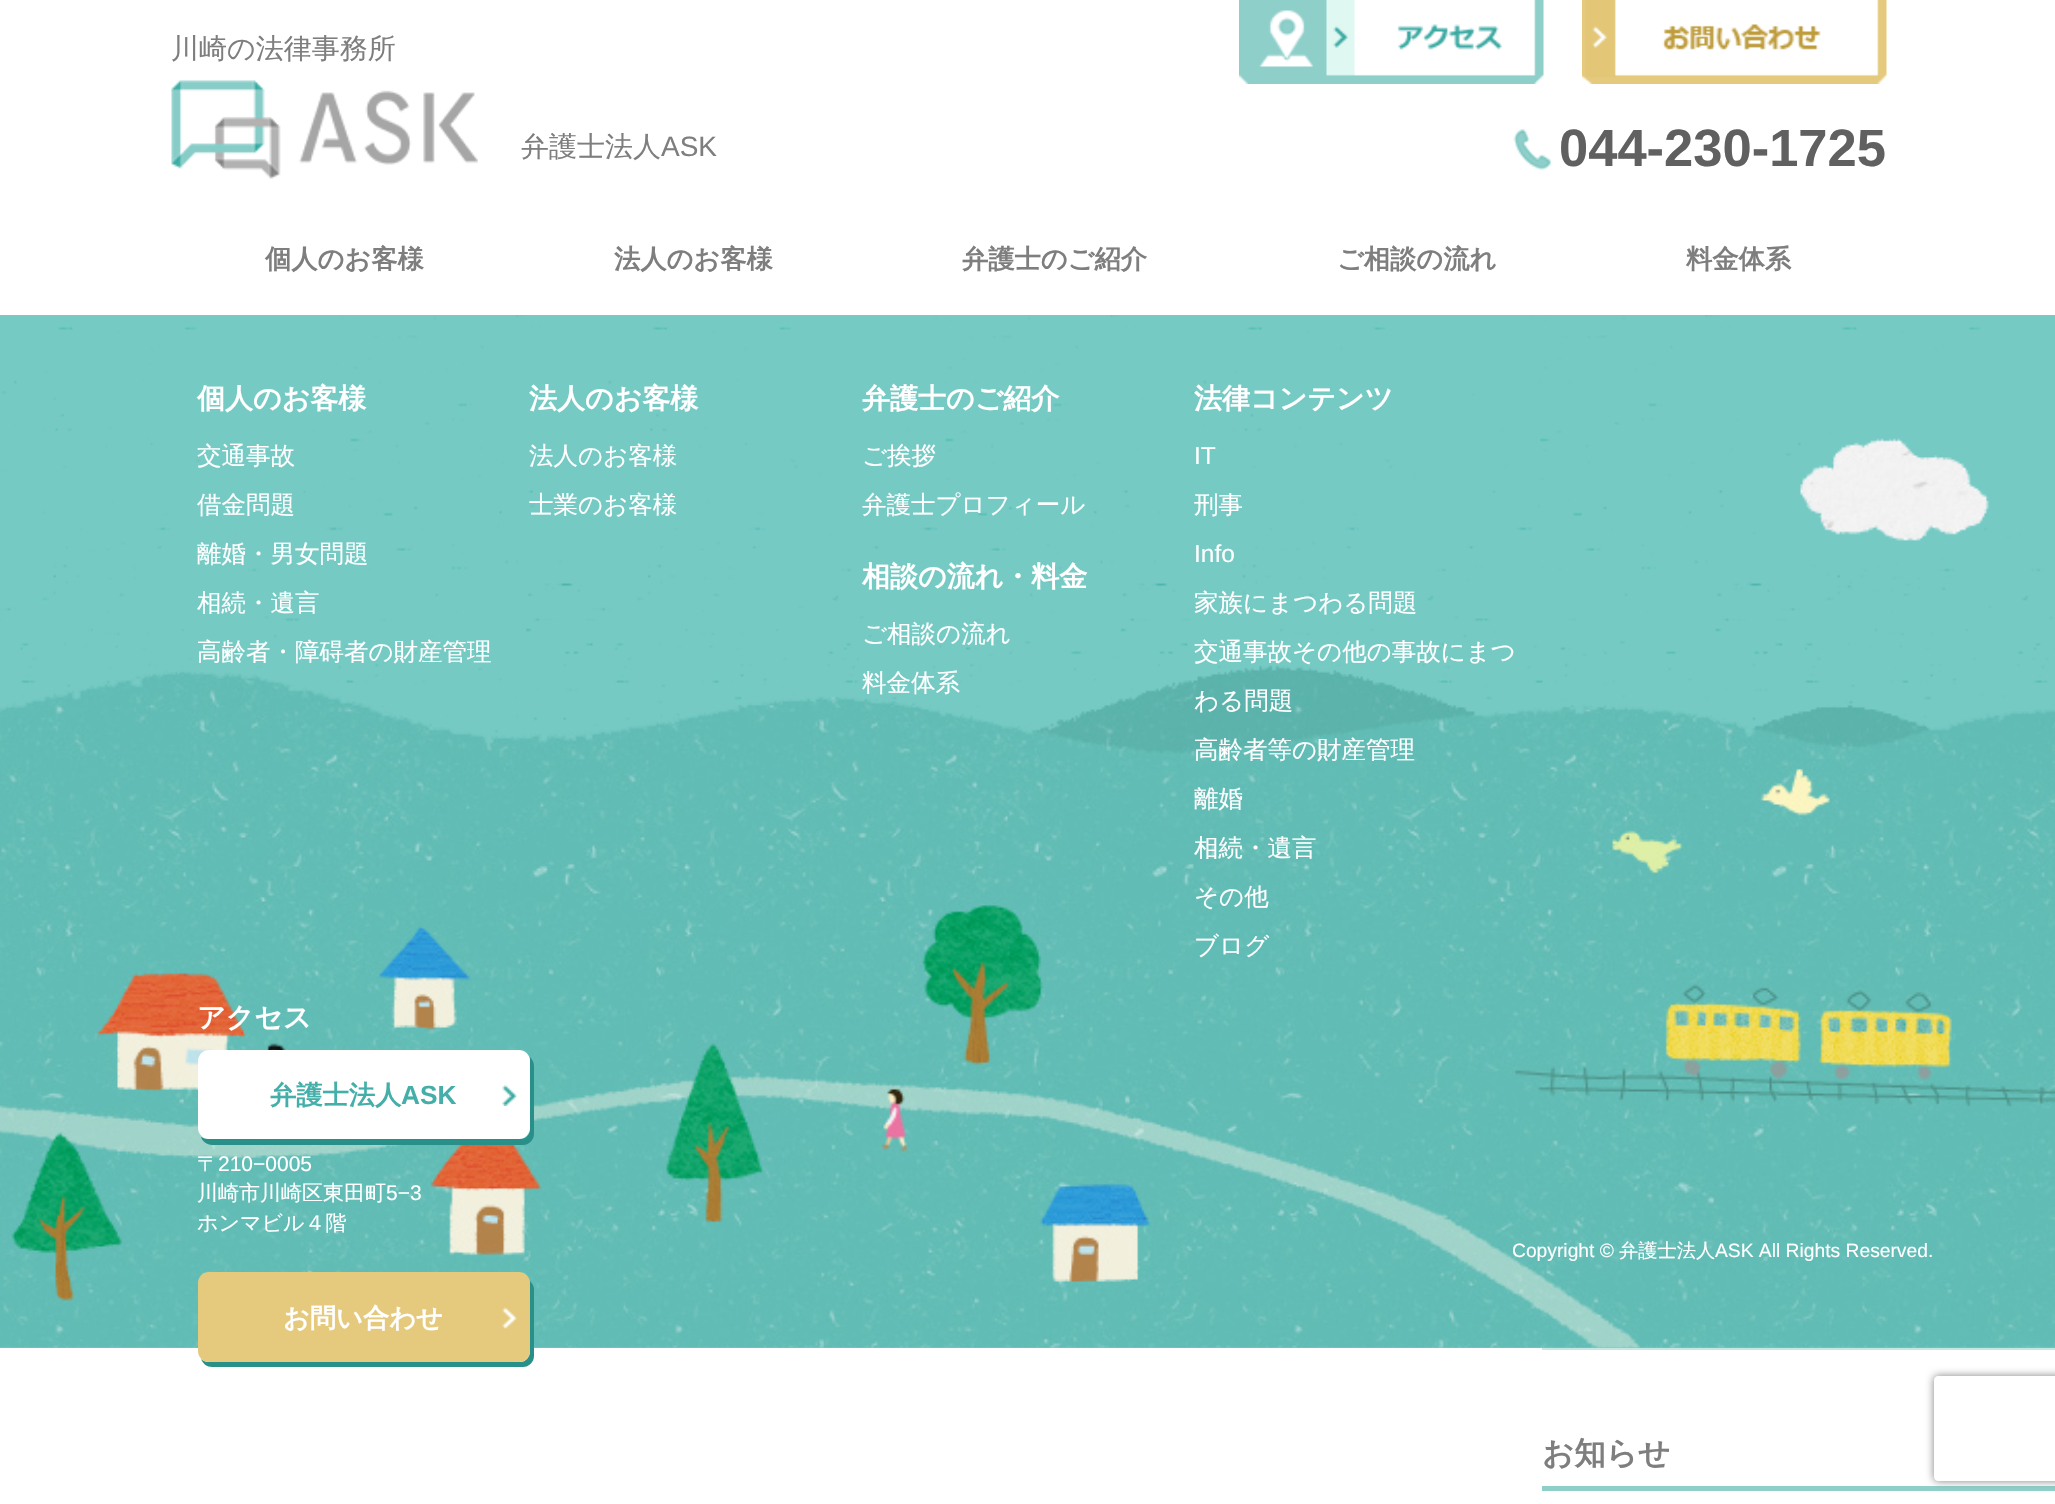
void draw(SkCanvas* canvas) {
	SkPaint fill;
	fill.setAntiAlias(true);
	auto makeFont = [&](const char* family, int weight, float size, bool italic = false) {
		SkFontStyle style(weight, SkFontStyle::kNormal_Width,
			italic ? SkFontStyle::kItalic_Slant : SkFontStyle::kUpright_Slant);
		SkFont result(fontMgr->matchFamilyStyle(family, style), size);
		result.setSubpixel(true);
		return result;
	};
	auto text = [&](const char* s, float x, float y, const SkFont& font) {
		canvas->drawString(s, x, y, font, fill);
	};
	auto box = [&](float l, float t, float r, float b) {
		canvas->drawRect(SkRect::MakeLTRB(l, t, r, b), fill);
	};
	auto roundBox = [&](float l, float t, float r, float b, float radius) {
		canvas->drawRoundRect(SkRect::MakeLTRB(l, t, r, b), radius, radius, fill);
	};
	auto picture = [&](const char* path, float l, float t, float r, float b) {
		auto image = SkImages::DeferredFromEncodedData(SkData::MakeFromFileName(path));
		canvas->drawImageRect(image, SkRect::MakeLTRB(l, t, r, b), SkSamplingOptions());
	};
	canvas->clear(0xFFFFFFFF);
	picture("image0.png", 171, 80, 478, 179);
	picture("image1.png", 1239, 0, 1544, 84);
	picture("image2.png", 1582, 0, 1887, 84);
	picture("image3.png", 1513, 129, 1551, 171);
	fill.setColor(0xFF76CAC4);
	box(0, 315, 2055, 1348);
	picture("image4.png", 0, 315, 2055, 1348);
	fill.setColor(0xFF299089);
	canvas->drawPath(SkPathBuilder().moveTo(201, 1137).cubicTo(202, 1141, 207, 1145, 212, 1145).lineTo(523, 1145).cubicTo(529, 1145, 534, 1140, 534, 1134).lineTo(534, 1066).cubicTo(534, 1062, 532, 1059, 530, 1057).lineTo(530, 1060).lineTo(530, 1129).cubicTo(530, 1135, 526, 1139, 520, 1139).lineTo(208, 1139).cubicTo(206, 1139, 203, 1138, 201, 1137).close().detach(), fill);
	fill.setColor(0xFFFFFFFF);
	roundBox(198, 1050, 530, 1139, 11);
	picture("image5.png", 502, 1085, 517, 1106);
	fill.setColor(0xFF299089);
	canvas->drawPath(SkPathBuilder().moveTo(201, 1359).cubicTo(203, 1364, 207, 1367, 212, 1367).lineTo(523, 1367).cubicTo(529, 1367, 534, 1362, 534, 1356).lineTo(534, 1289).cubicTo(534, 1286, 532, 1283, 530, 1281).lineTo(530, 1351).cubicTo(530, 1357, 526, 1362, 520, 1362).lineTo(208, 1362).cubicTo(206, 1362, 203, 1361, 201, 1359).close().detach(), fill);
	fill.setColor(0xFFE5CA7D);
	roundBox(198, 1272, 530, 1362, 11);
	picture("image6.png", 502, 1307, 517, 1329);
	fill.setColor(0xFFC7E7E4);
	box(1542, 1348, 2055, 1350);
	fill.setColor(0xFF8FCFCA);
	box(1542, 1486, 2055, 1491);
	canvas->save();
	canvas->clipPath(SkPathBuilder(SkPathFillType::kEvenOdd).moveTo(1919, 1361).lineTo(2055, 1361).lineTo(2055, 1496).lineTo(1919, 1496).close().moveTo(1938, 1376).lineTo(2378, 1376).cubicTo(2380, 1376, 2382, 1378, 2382, 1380).lineTo(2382, 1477).cubicTo(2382, 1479, 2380, 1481, 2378, 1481).lineTo(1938, 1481).cubicTo(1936, 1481, 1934, 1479, 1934, 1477).lineTo(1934, 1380).cubicTo(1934, 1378, 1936, 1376, 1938, 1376).close().detach(), true);
	fill.setColor(0xFF808080);
	fill.setMaskFilter(SkMaskFilter::MakeBlur(kNormal_SkBlurStyle, 4.5f));
	canvas->drawRoundRect(SkRect::MakeLTRB(1934, 1376, 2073, 1481), 4, 4, fill);
	fill.setMaskFilter(nullptr);
	canvas->restore();
	auto font1 = makeFont("WenQuanYi Zen Hei", 500, 28);
	fill.setColor(0xFF7E7E7E);
	text("川崎の法律事務所", 171, 58, font1);
	text("弁護士法人", 521, 156, font1);
	auto font2 = makeFont("Liberation Sans", 400, 28);
	text("ASK", 661, 156, font2);
	auto font3 = makeFont("Liberation Sans", 700, 52.5f);
	fill.setColor(0xFF606060);
	text("044-230-1725", 1559, 166, font3);
	auto font4 = makeFont("WenQuanYi Zen Hei", 700, 26.25f);
	fill.setColor(0xFF7E7E7E);
	text("個人のお客様", 265, 268, font4);
	text("法人のお客様", 614, 268, font4);
	text("弁護士のご紹介", 962, 268, font4);
	text("ご相談の流れ", 1337, 268, font4);
	text("料金体系", 1686, 268, font4);
	auto font5 = makeFont("WenQuanYi Zen Hei", 700, 28);
	fill.setColor(0xFFFFFFFF);
	text("個人のお客様", 197, 408, font5);
	auto font6 = makeFont("WenQuanYi Zen Hei", 500, 24.5f);
	text("交通事故", 197, 464, font6);
	text("借金問題", 197, 513, font6);
	text("離婚・男女問題", 197, 562, font6);
	text("相続・遺言", 197, 611, font6);
	text("高齢者・障碍者の財産管理", 197, 660, font6);
	text("法人のお客様", 529, 408, font5);
	text("法人のお客様", 529, 464, font6);
	text("士業のお客様", 529, 513, font6);
	text("弁護士のご紹介", 862, 408, font5);
	text("ご挨拶", 862, 464, font6);
	text("弁護士プロフィール", 862, 513, font6);
	text("相談の流れ・料金", 862, 586, font5);
	text("ご相談の流れ", 862, 642, font6);
	text("料金体系", 862, 691, font6);
	text("法律コンテンツ", 1194, 408, font5);
	auto font7 = makeFont("Liberation Sans", 400, 24.5f);
	text("IT", 1194, 464, font7);
	text("刑事", 1194, 513, font6);
	text("Info", 1194, 562, font7);
	text("家族にまつわる問題", 1194, 611, font6);
	text("交通事故その他の事故にまつ", 1194, 660, font6);
	text("わる問題", 1194, 709, font6);
	text("高齢者等の財産管理", 1194, 758, font6);
	text("離婚", 1194, 807, font6);
	text("相続・遺言", 1194, 856, font6);
	text("その他", 1194, 905, font6);
	text("ブログ", 1194, 954, font6);
	text("アクセス", 197, 1027, font5);
	fill.setColor(0xFF43AFA8);
	text("弁護士法人", 270, 1104, font4);
	auto font8 = makeFont("Liberation Sans", 700, 26.25f);
	text("ASK", 401, 1104, font8);
	auto font9 = makeFont("WenQuanYi Zen Hei", 500, 21);
	fill.setColor(0xFFFFFFFF);
	text("〒", 197, 1171, font9);
	auto font10 = makeFont("Liberation Sans", 400, 21);
	text("210−0005", 218, 1171, font10);
	text("川崎市川崎区東田町", 197, 1200, font9);
	text("5−3", 386, 1200, font10);
	text("ホンマビル４階", 197, 1230, font9);
	text("お問い合わせ", 283, 1327, font4);
	auto font11 = makeFont("Liberation Sans", 400, 19.25f);
	text("Copyright ©", 1512, 1257, font11);
	auto font12 = makeFont("WenQuanYi Zen Hei", 500, 19.25f);
	text("弁護士法人", 1619, 1257, font12);
	text("ASK All Rights Reserved.", 1715, 1257, font11);
	auto font13 = makeFont("WenQuanYi Zen Hei", 700, 31.5f);
	fill.setColor(0xFF7E7E7E);
	text("お知らせ", 1542, 1464, font13);
}
